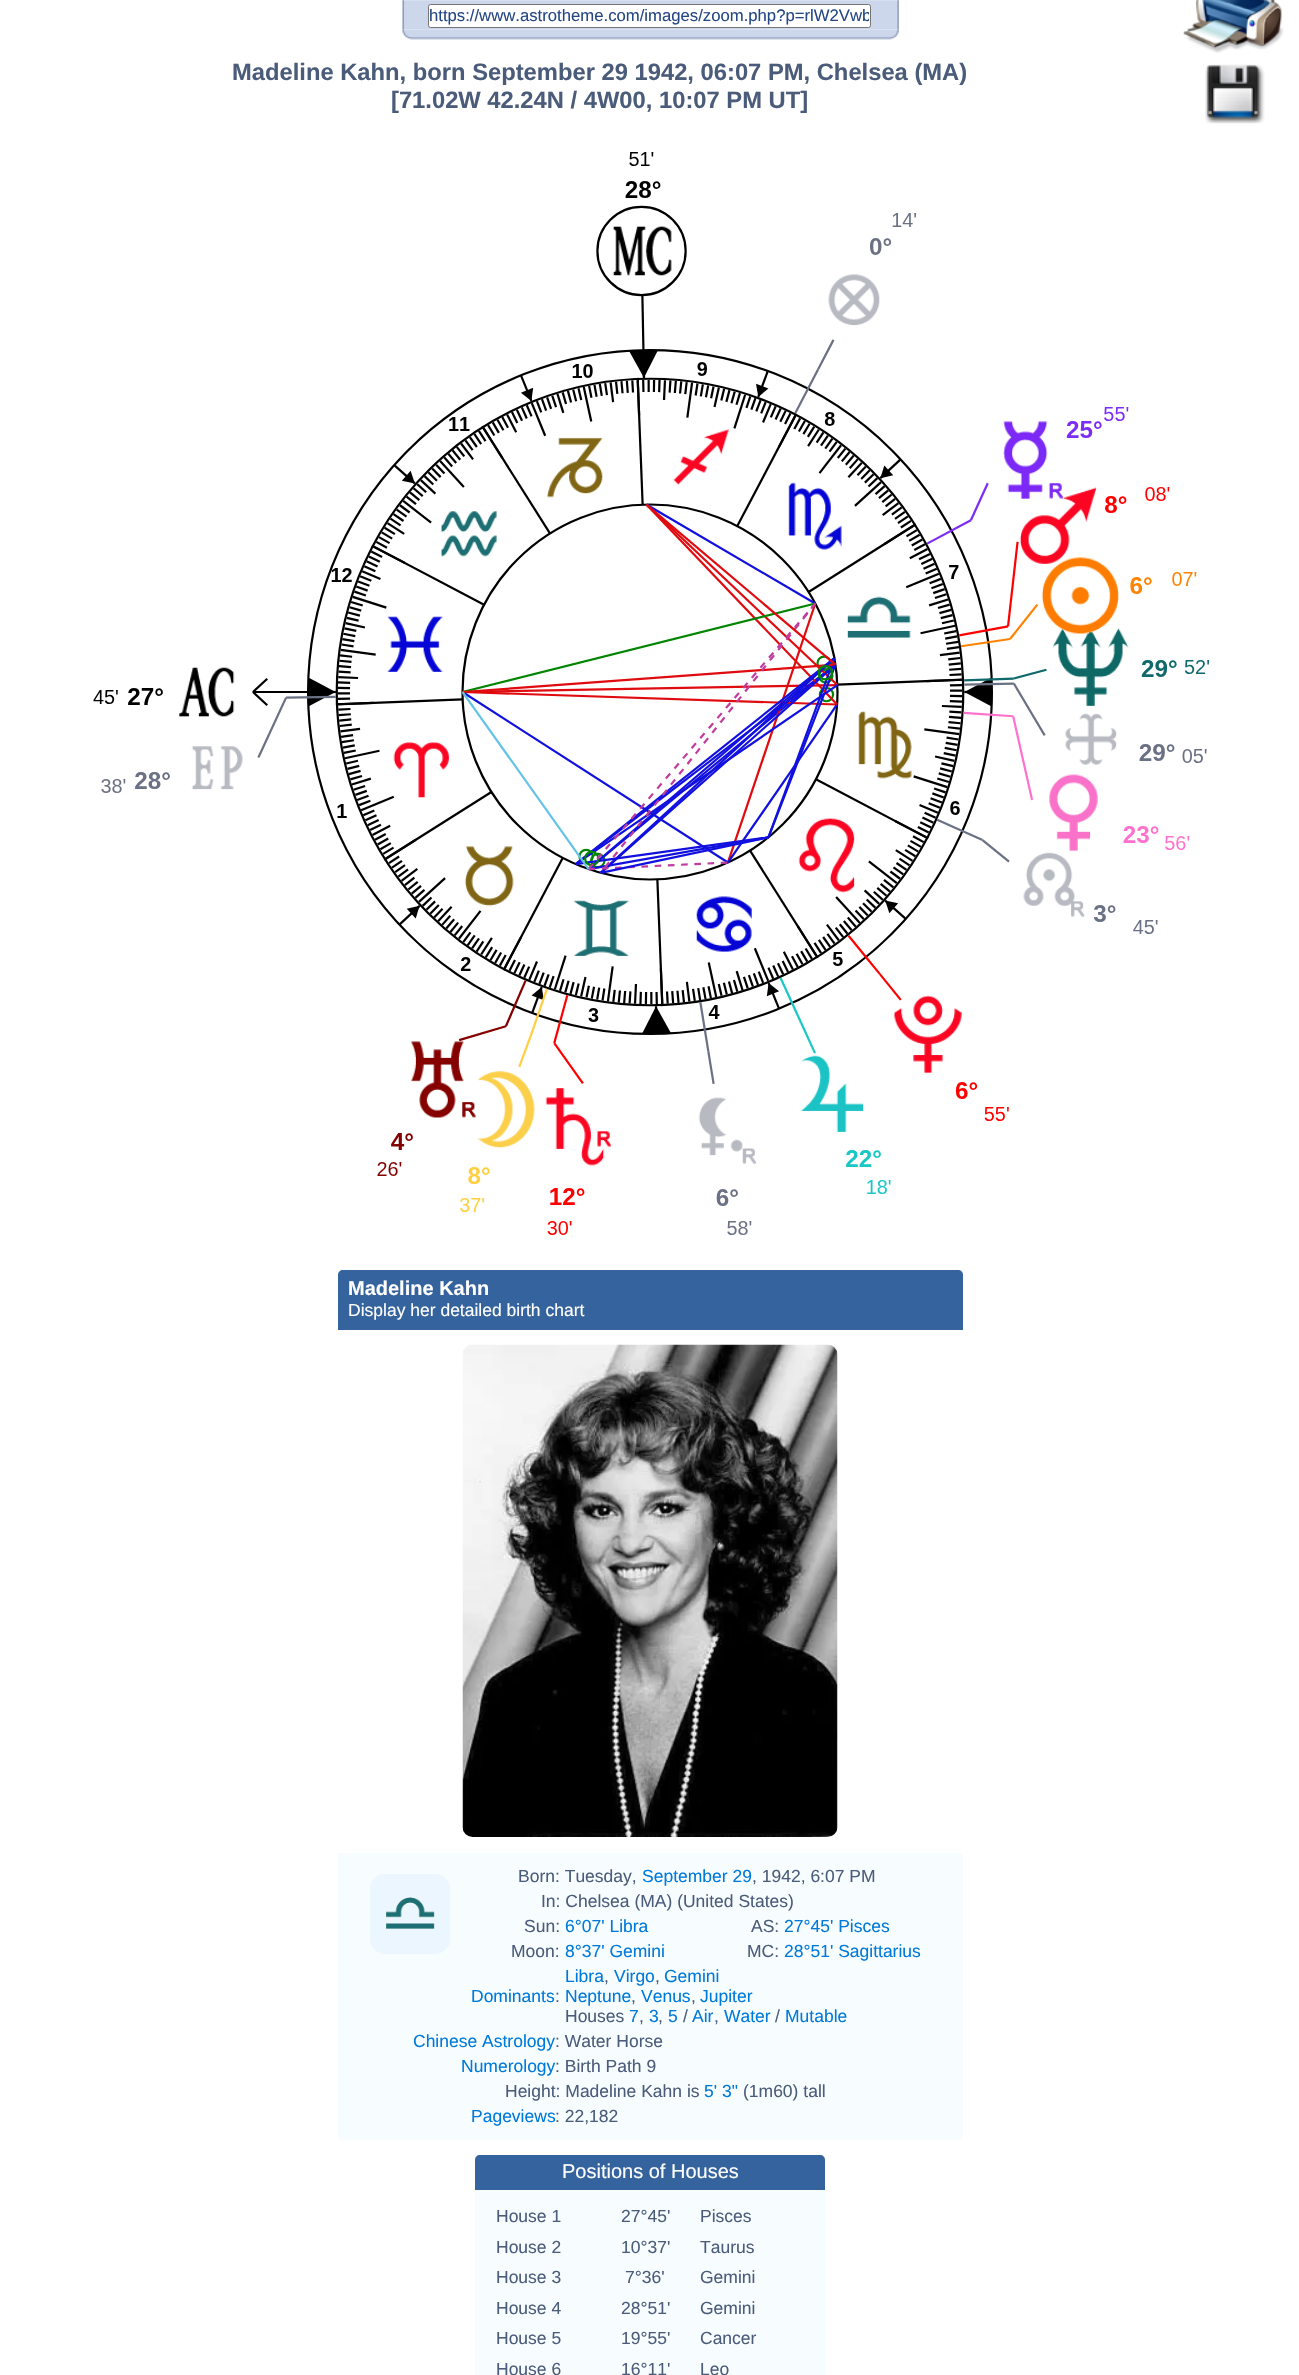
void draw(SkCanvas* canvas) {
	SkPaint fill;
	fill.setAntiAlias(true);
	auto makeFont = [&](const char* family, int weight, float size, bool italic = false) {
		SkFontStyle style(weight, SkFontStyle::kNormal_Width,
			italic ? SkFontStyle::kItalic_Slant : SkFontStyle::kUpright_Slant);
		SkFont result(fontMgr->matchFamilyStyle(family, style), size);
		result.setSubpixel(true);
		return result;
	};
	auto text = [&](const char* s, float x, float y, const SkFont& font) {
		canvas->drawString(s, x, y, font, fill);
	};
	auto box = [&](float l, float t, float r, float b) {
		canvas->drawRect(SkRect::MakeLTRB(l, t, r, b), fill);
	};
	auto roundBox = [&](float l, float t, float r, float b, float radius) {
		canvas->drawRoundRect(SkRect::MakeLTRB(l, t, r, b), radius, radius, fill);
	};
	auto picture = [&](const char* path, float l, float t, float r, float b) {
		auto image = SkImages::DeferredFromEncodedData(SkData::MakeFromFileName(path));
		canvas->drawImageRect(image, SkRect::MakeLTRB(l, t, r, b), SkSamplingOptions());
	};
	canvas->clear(0xFFFFFFFF);
	picture("image0.png", 402, 0, 899, 1);
	picture("image1.png", 402, 0, 899, 30);
	fill.setColor(0xFFFFFFFF);
	canvas->drawRoundRect(SkRect::MakeLTRB(428.5f, 4.5f, 870.5f, 27.5f), 2, 2, fill);
	fill.setStyle(SkPaint::kStroke_Style);
	fill.setStrokeWidth(1);
	fill.setColor(0xFF767676);
	canvas->drawRoundRect(SkRect::MakeLTRB(428.5f, 4.5f, 870.5f, 27.5f), 2, 2, fill);
	picture("image2.png", 402, 29, 899, 40);
	picture("image3.png", 1183, 0, 1284, 53);
	picture("image4.png", 1205, 64, 1265, 124);
	picture("image5.png", 93, 152, 1210, 1235);
	fill.setStyle(SkPaint::kFill_Style);
	fill.setColor(0xFF35639E);
	canvas->drawPath(SkPathBuilder().moveTo(343, 1270).lineTo(958, 1270).cubicTo(961, 1270, 963, 1272, 963, 1275).lineTo(963, 1330).lineTo(338, 1330).lineTo(338, 1275).cubicTo(338, 1272, 340, 1270, 343, 1270).close().detach(), fill);
	picture("image6.png", 462, 1344, 838, 1837);
	fill.setColor(0xFFF7FCFF);
	canvas->drawPath(SkPathBuilder().moveTo(338, 1853).lineTo(963, 1853).lineTo(963, 2135).cubicTo(963, 2138, 961, 2140, 958, 2140).lineTo(343, 2140).cubicTo(340, 2140, 338, 2138, 338, 2135).close().detach(), fill);
	fill.setColor(0xFFEBF6FE);
	roundBox(370, 1874, 450, 1954, 15);
	picture("image7.png", 386, 1897, 435, 1929);
	fill.setColor(0xFF35639E);
	canvas->drawPath(SkPathBuilder().moveTo(480, 2155).lineTo(820, 2155).cubicTo(823, 2155, 825, 2157, 825, 2160).lineTo(825, 2190).lineTo(475, 2190).lineTo(475, 2160).cubicTo(475, 2157, 477, 2155, 480, 2155).close().detach(), fill);
	fill.setColor(0xFFF7FCFF);
	box(475, 2190, 825, 2375);
	canvas->save();
	canvas->clipRect(SkRect::MakeLTRB(430, 6, 869, 25));
	auto font1 = makeFont("Liberation Sans", 400, 16.7f);
	fill.setColor(0xFF244685);
	text("https://www.astrotheme.com/images/zoom.php?p=rlW2Vwb", 429, 21, font1);
	canvas->restore();
	auto font2 = makeFont("Liberation Sans", 700, 23.75f);
	fill.setColor(0xFF4B5C7B);
	text("Madeline Kahn, born September 29 1942, 06:07 PM, Chelsea (MA)", 232, 80, font2);
	text("[71.02W 42.24N / 4W00, 10:07 PM UT]", 391, 108, font2);
	auto font3 = makeFont("Liberation Sans", 700, 20);
	fill.setColor(0xFFFFFFFF);
	text("Madeline Kahn", 348, 1295, font3);
	auto font4 = makeFont("Liberation Sans", 400, 17.5f);
	text("Display her detailed birth chart", 348, 1316, font4);
	fill.setColor(0xFF4B5C7B);
	text("Born: Tuesday,", 518, 1882, font4);
	fill.setColor(0xFF007ADA);
	text("September 29", 642, 1882, font4);
	fill.setColor(0xFF4B5C7B);
	text(", 1942, 6:07 PM", 752, 1882, font4);
	text("In: Chelsea (MA) (United States)", 541, 1907, font4);
	text("Sun:", 524, 1932, font4);
	fill.setColor(0xFF007ADA);
	text("6°07' Libra", 565, 1932, font4);
	fill.setColor(0xFF4B5C7B);
	text("AS:", 751, 1932, font4);
	fill.setColor(0xFF007ADA);
	text("27°45' Pisces", 784, 1932, font4);
	fill.setColor(0xFF4B5C7B);
	text("Moon:", 511, 1957, font4);
	fill.setColor(0xFF007ADA);
	text("8°37' Gemini", 565, 1957, font4);
	fill.setColor(0xFF4B5C7B);
	text("MC:", 747, 1957, font4);
	fill.setColor(0xFF007ADA);
	text("28°51' Sagittarius", 784, 1957, font4);
	text("Dominants", 471, 2002, font4);
	fill.setColor(0xFF4B5C7B);
	text(":", 555, 2002, font4);
	fill.setColor(0xFF007ADA);
	text("Libra", 565, 1982, font4);
	fill.setColor(0xFF4B5C7B);
	text(",", 604, 1982, font4);
	fill.setColor(0xFF007ADA);
	text("Virgo", 614, 1982, font4);
	fill.setColor(0xFF4B5C7B);
	text(",", 655, 1982, font4);
	fill.setColor(0xFF007ADA);
	text("Gemini", 664, 1982, font4);
	text("Neptune", 565, 2002, font4);
	fill.setColor(0xFF4B5C7B);
	text(",", 631, 2002, font4);
	fill.setColor(0xFF007ADA);
	text("Venus", 641, 2002, font4);
	fill.setColor(0xFF4B5C7B);
	text(",", 691, 2002, font4);
	fill.setColor(0xFF007ADA);
	text("Jupiter", 700, 2002, font4);
	fill.setColor(0xFF4B5C7B);
	text("Houses", 565, 2022, font4);
	fill.setColor(0xFF007ADA);
	text("7", 629, 2022, font4);
	fill.setColor(0xFF4B5C7B);
	text(",", 639, 2022, font4);
	fill.setColor(0xFF007ADA);
	text("3", 649, 2022, font4);
	fill.setColor(0xFF4B5C7B);
	text(",", 658, 2022, font4);
	fill.setColor(0xFF007ADA);
	text("5", 668, 2022, font4);
	fill.setColor(0xFF4B5C7B);
	text("/", 683, 2022, font4);
	fill.setColor(0xFF007ADA);
	text("Air", 692, 2022, font4);
	fill.setColor(0xFF4B5C7B);
	text(",", 714, 2022, font4);
	fill.setColor(0xFF007ADA);
	text("Water", 724, 2022, font4);
	fill.setColor(0xFF4B5C7B);
	text("/", 775, 2022, font4);
	fill.setColor(0xFF007ADA);
	text("Mutable", 785, 2022, font4);
	text("Chinese Astrology", 413, 2047, font4);
	fill.setColor(0xFF4B5C7B);
	text(": Water Horse", 555, 2047, font4);
	fill.setColor(0xFF007ADA);
	text("Numerology", 461, 2072, font4);
	fill.setColor(0xFF4B5C7B);
	text(": Birth Path 9", 555, 2072, font4);
	text("Height: Madeline Kahn is", 505, 2097, font4);
	fill.setColor(0xFF007ADA);
	text("5' 3\"", 704, 2097, font4);
	fill.setColor(0xFF4B5C7B);
	text("(1m60) tall", 743, 2097, font4);
	fill.setColor(0xFF007ADA);
	text("Pageviews", 471, 2122, font4);
	fill.setColor(0xFF4B5C7B);
	text(": 22,182", 555, 2122, font4);
	auto font5 = makeFont("Liberation Sans", 400, 20);
	fill.setColor(0xFFFFFFFF);
	text("Positions of Houses", 562, 2178, font5);
	fill.setColor(0xFF4B5C7B);
	text("House 1", 496, 2222, font4);
	text("27°45'", 621, 2222, font4);
	text("Pisces", 700, 2222, font4);
	text("House 2", 496, 2253, font4);
	text("10°37'", 621, 2253, font4);
	text("Taurus", 700, 2253, font4);
	text("House 3", 496, 2283, font4);
	text("7°36'", 625, 2283, font4);
	text("Gemini", 700, 2283, font4);
	text("House 4", 496, 2314, font4);
	text("28°51'", 621, 2314, font4);
	text("Gemini", 700, 2314, font4);
	text("House 5", 496, 2344, font4);
	text("19°55'", 621, 2344, font4);
	text("Cancer", 700, 2344, font4);
	text("House 6", 496, 2375, font4);
	text("16°11'", 621, 2375, font4);
	text("Leo", 700, 2375, font4);
}
